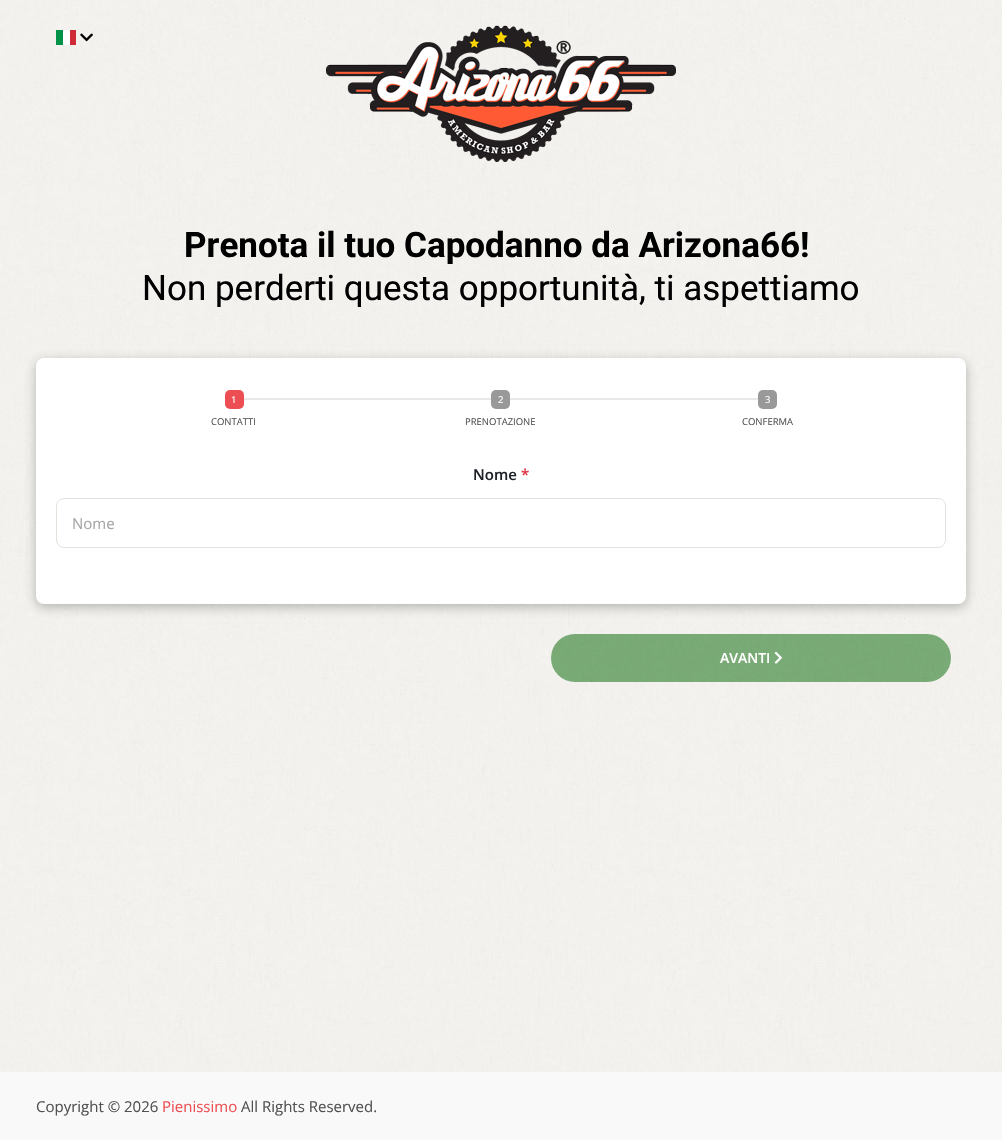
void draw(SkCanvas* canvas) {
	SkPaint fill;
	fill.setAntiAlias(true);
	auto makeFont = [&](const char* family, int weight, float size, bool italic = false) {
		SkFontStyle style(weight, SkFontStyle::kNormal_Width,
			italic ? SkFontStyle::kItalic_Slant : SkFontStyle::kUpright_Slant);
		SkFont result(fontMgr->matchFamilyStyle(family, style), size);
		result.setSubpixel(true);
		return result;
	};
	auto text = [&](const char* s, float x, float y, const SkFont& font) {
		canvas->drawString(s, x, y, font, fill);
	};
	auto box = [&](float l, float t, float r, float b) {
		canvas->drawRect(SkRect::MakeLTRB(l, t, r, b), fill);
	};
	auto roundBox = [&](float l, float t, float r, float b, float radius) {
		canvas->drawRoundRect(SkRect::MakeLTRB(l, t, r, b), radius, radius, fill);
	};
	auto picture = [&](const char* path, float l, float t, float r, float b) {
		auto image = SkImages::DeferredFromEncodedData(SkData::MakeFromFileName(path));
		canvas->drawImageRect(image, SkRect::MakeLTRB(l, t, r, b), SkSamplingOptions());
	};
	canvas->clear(0xFFFFFFFF);
	picture("image0.png", 0, 0, 1002, 1072);
	fill.setColor(0xFFFFFFFF);
	box(63, 30, 70, 45);
	fill.setColor(0xFF009246);
	box(56, 30, 63, 45);
	fill.setColor(0xFFCE2B37);
	box(70, 30, 76, 45);
	picture("image1.png", 80, 33, 93, 42);
	picture("image2.png", 326, 25, 676, 162);
	fill.setColor(0x4D191F21);
	fill.setMaskFilter(SkMaskFilter::MakeBlur(kNormal_SkBlurStyle, 6));
	canvas->drawRoundRect(SkRect::MakeLTRB(36, 361, 966, 607), 8, 8, fill);
	fill.setMaskFilter(nullptr);
	fill.setColor(0xFFFFFFFF);
	roundBox(36, 358, 966, 604, 8);
	fill.setColor(0xFFE8E8E8);
	box(244, 398, 491, 400);
	fill.setColor(0xFFED4E53);
	roundBox(225, 390, 244, 409, 5);
	fill.setColor(0xFF999999);
	roundBox(491, 390, 510, 409, 5);
	fill.setColor(0xFFE8E8E8);
	box(510, 398, 758, 400);
	fill.setColor(0xFF999999);
	roundBox(758, 390, 777, 409, 5);
	fill.setStyle(SkPaint::kStroke_Style);
	fill.setStrokeWidth(1);
	fill.setColor(0xFFE5E1DC);
	canvas->drawRoundRect(SkRect::MakeLTRB(56.5f, 498.5f, 945.5f, 547.5f), 7.5f, 7.5f, fill);
	fill.setStyle(SkPaint::kFill_Style);
	fill.setColor(0x80006400);
	roundBox(551, 634, 951, 682, 24);
	picture("image3.png", 774, 651, 782, 664);
	fill.setColor(0xFFF9F9F9);
	box(0, 1072, 1002, 1140);
	auto font1 = makeFont("Roboto", 700, 35);
	fill.setColor(0xFF000000);
	text("Prenota il tuo Capodanno da Arizona66!", 184, 257, font1);
	auto font2 = makeFont("Roboto", 400, 35);
	text("Non perderti questa opportunità, ti aspettiamo", 142, 300, font2);
	auto font3 = makeFont("Open Sans", 400, 9.5f);
	fill.setColor(0xFFFFFFFF);
	text("1", 231, 403, font3);
	text("2", 498, 403, font3);
	fill.setColor(0xFF515151);
	text("CONTATTI", 211, 425, font3);
	text("PRENOTAZIONE", 465, 425, font3);
	fill.setColor(0xFFFFFFFF);
	text("3", 765, 403, font3);
	fill.setColor(0xFF515151);
	text("CONFERMA", 742, 425, font3);
	auto font4 = makeFont("Open Sans", 600, 15);
	fill.setColor(0xFF1D2228);
	text("Nome", 473, 480, font4);
	fill.setColor(0xFFDC3545);
	text("*", 521, 480, font4);
	auto font5 = makeFont("Open Sans", 400, 15);
	fill.setColor(0xFFA5A5A5);
	text("Nome", 72, 529, font5);
	auto font6 = makeFont("Open Sans", 600, 14);
	fill.setColor(0xFFFFFFFF);
	text("AVANTI", 720, 663, font6);
	fill.setColor(0xFF515151);
	text("Copyright © 2026", 36, 1112, font5);
	fill.setColor(0xFFED4E53);
	text("Pienissimo", 162, 1112, font5);
	fill.setColor(0xFF515151);
	text("All Rights Reserved.", 241, 1112, font5);
}
